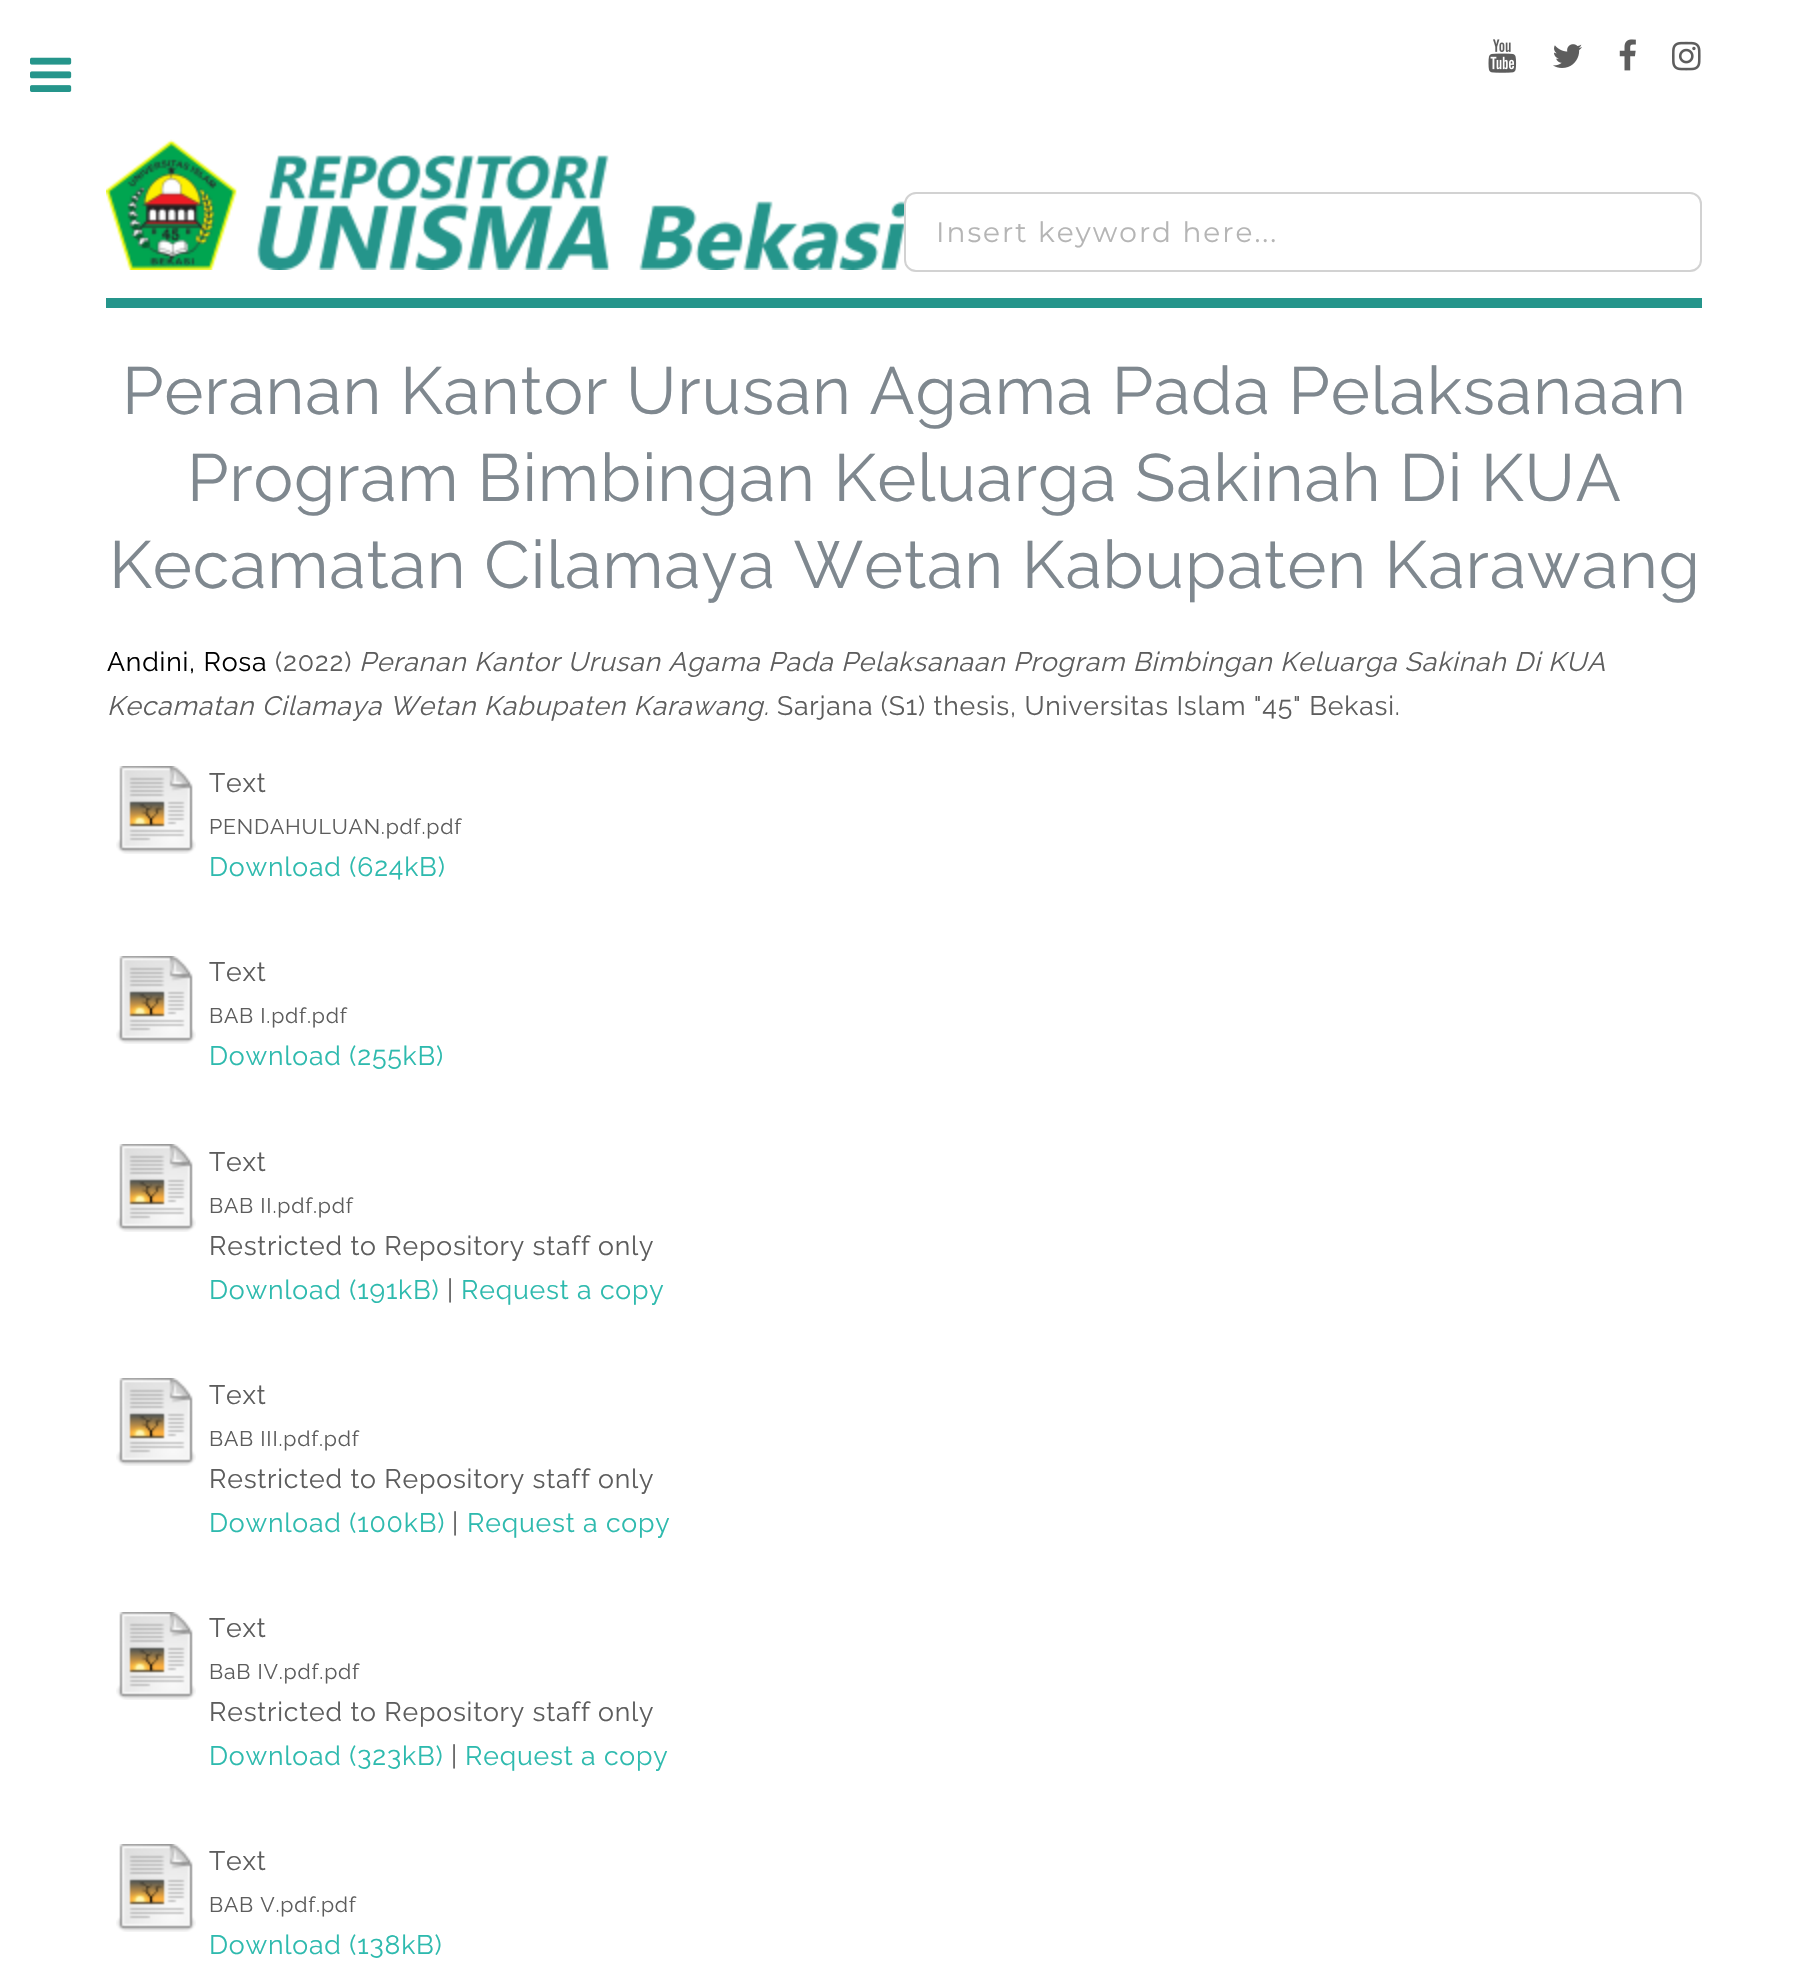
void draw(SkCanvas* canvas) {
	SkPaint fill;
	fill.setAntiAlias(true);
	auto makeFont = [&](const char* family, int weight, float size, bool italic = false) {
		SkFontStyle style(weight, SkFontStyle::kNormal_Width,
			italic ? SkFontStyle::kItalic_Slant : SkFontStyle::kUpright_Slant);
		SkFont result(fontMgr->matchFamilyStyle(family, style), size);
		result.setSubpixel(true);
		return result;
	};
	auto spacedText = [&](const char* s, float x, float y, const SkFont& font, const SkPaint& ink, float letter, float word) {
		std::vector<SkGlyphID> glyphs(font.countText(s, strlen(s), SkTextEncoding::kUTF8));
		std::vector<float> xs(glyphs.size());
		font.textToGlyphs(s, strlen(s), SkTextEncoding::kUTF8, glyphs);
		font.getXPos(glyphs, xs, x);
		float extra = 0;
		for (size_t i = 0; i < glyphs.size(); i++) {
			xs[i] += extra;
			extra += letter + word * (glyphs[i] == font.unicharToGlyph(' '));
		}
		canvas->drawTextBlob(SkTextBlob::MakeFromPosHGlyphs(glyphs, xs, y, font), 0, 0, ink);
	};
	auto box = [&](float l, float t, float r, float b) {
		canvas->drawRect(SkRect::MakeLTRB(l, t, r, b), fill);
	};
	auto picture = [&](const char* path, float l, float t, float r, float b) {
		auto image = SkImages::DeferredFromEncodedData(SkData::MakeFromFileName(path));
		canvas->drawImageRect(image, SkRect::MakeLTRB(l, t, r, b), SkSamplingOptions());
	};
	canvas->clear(0xFFFFFFFF);
	picture("image0.png", 30, 57, 72, 92);
	picture("image1.png", 1488, 39, 1517, 73);
	picture("image2.png", 1553, 44, 1582, 68);
	picture("image3.png", 1619, 39, 1636, 71);
	picture("image4.png", 1672, 41, 1701, 71);
	picture("image5.png", 106, 139, 905, 270);
	fill.setColor(0xFF25958B);
	box(106, 298, 1702, 308);
	fill.setColor(0xFFFFFFFF);
	canvas->drawRoundRect(SkRect::MakeLTRB(905, 193, 1701, 271), 11, 11, fill);
	fill.setStyle(SkPaint::kStroke_Style);
	fill.setStrokeWidth(2);
	fill.setColor(0xFFD2D2D2);
	canvas->drawRoundRect(SkRect::MakeLTRB(905, 193, 1701, 271), 11, 11, fill);
	picture("image6.png", 116, 766, 196, 854);
	picture("image6.png", 116, 956, 196, 1044);
	picture("image6.png", 116, 1144, 196, 1232);
	picture("image6.png", 116, 1378, 196, 1466);
	picture("image6.png", 116, 1612, 196, 1700);
	picture("image6.png", 116, 1844, 196, 1932);
	auto font1 = makeFont("Montserrat", 400, 28);
	fill.setStyle(SkPaint::kFill_Style);
	fill.setColor(0xFFB5B5B5);
	spacedText("Insert keyword here...", 936, 242, font1, fill, 2, 0);
	auto font2 = makeFont("Raleway", 400, 66.7f);
	fill.setColor(0xFF7F888F);
	spacedText("Peranan Kantor Urusan Agama Pada Pelaksanaan", 122, 414, font2, fill, 0.8f, 0);
	spacedText("Program Bimbingan Keluarga Sakinah Di KUA", 187, 501, font2, fill, 0.8f, 0);
	spacedText("Kecamatan Cilamaya Wetan Kabupaten Karawang", 109, 588, font2, fill, 0.8f, 0);
	auto font3 = makeFont("Raleway", 400, 26.65f);
	fill.setColor(0xFF000000);
	spacedText("Andini, Rosa", 107, 671, font3, fill, 0.8f, 0);
	fill.setColor(0xFF5D5D5D);
	spacedText("(2022)", 275, 671, font3, fill, 0.8f, 0);
	auto font4 = makeFont("Raleway", 400, 26.65f, true);
	spacedText("Peranan Kantor Urusan Agama Pada Pelaksanaan Program Bimbingan Keluarga Sakinah Di KUA", 359, 671, font4, fill, 0.8f, 0);
	spacedText("Kecamatan Cilamaya Wetan Kabupaten Karawang.", 107, 715, font4, fill, 0.8f, 0);
	spacedText("Sarjana (S1) thesis, Universitas Islam \"45\" Bekasi.", 777, 715, font3, fill, 0.8f, 0);
	spacedText("Text", 209, 792, font3, fill, 0.8f, 0);
	auto font5 = makeFont("Raleway", 400, 21.25f);
	spacedText("PENDAHULUAN.pdf.pdf", 209, 834, font5, fill, 0.8f, 0);
	fill.setColor(0xFF2EBAAE);
	spacedText("Download (624kB)", 209, 876, font3, fill, 0.8f, 0);
	fill.setColor(0xFF5D5D5D);
	spacedText("Text", 209, 981, font3, fill, 0.8f, 0);
	spacedText("BAB I.pdf.pdf", 209, 1023, font5, fill, 0.8f, 0);
	fill.setColor(0xFF2EBAAE);
	spacedText("Download (255kB)", 209, 1065, font3, fill, 0.8f, 0);
	fill.setColor(0xFF5D5D5D);
	spacedText("Text", 209, 1171, font3, fill, 0.8f, 0);
	spacedText("BAB II.pdf.pdf", 209, 1213, font5, fill, 0.8f, 0);
	spacedText("Restricted to Repository staff only", 209, 1255, font3, fill, 0.8f, 0);
	fill.setColor(0xFF2EBAAE);
	spacedText("Download (191kB)", 209, 1299, font3, fill, 0.8f, 0);
	fill.setColor(0xFF5D5D5D);
	spacedText("|", 447, 1299, font3, fill, 0.8f, 0);
	fill.setColor(0xFF2EBAAE);
	spacedText("Request a copy", 461, 1299, font3, fill, 0.8f, 0);
	fill.setColor(0xFF5D5D5D);
	spacedText("Text", 209, 1404, font3, fill, 0.8f, 0);
	spacedText("BAB III.pdf.pdf", 209, 1446, font5, fill, 0.8f, 0);
	spacedText("Restricted to Repository staff only", 209, 1488, font3, fill, 0.8f, 0);
	fill.setColor(0xFF2EBAAE);
	spacedText("Download (100kB)", 209, 1532, font3, fill, 0.8f, 0);
	fill.setColor(0xFF5D5D5D);
	spacedText("|", 452, 1532, font3, fill, 0.8f, 0);
	fill.setColor(0xFF2EBAAE);
	spacedText("Request a copy", 467, 1532, font3, fill, 0.8f, 0);
	fill.setColor(0xFF5D5D5D);
	spacedText("Text", 209, 1637, font3, fill, 0.8f, 0);
	spacedText("BaB IV.pdf.pdf", 209, 1679, font5, fill, 0.8f, 0);
	spacedText("Restricted to Repository staff only", 209, 1721, font3, fill, 0.8f, 0);
	fill.setColor(0xFF2EBAAE);
	spacedText("Download (323kB)", 209, 1765, font3, fill, 0.8f, 0);
	fill.setColor(0xFF5D5D5D);
	spacedText("|", 451, 1765, font3, fill, 0.8f, 0);
	fill.setColor(0xFF2EBAAE);
	spacedText("Request a copy", 465, 1765, font3, fill, 0.8f, 0);
	fill.setColor(0xFF5D5D5D);
	spacedText("Text", 209, 1870, font3, fill, 0.8f, 0);
	spacedText("BAB V.pdf.pdf", 209, 1912, font5, fill, 0.8f, 0);
	fill.setColor(0xFF2EBAAE);
	spacedText("Download (138kB)", 209, 1954, font3, fill, 0.8f, 0);
}
